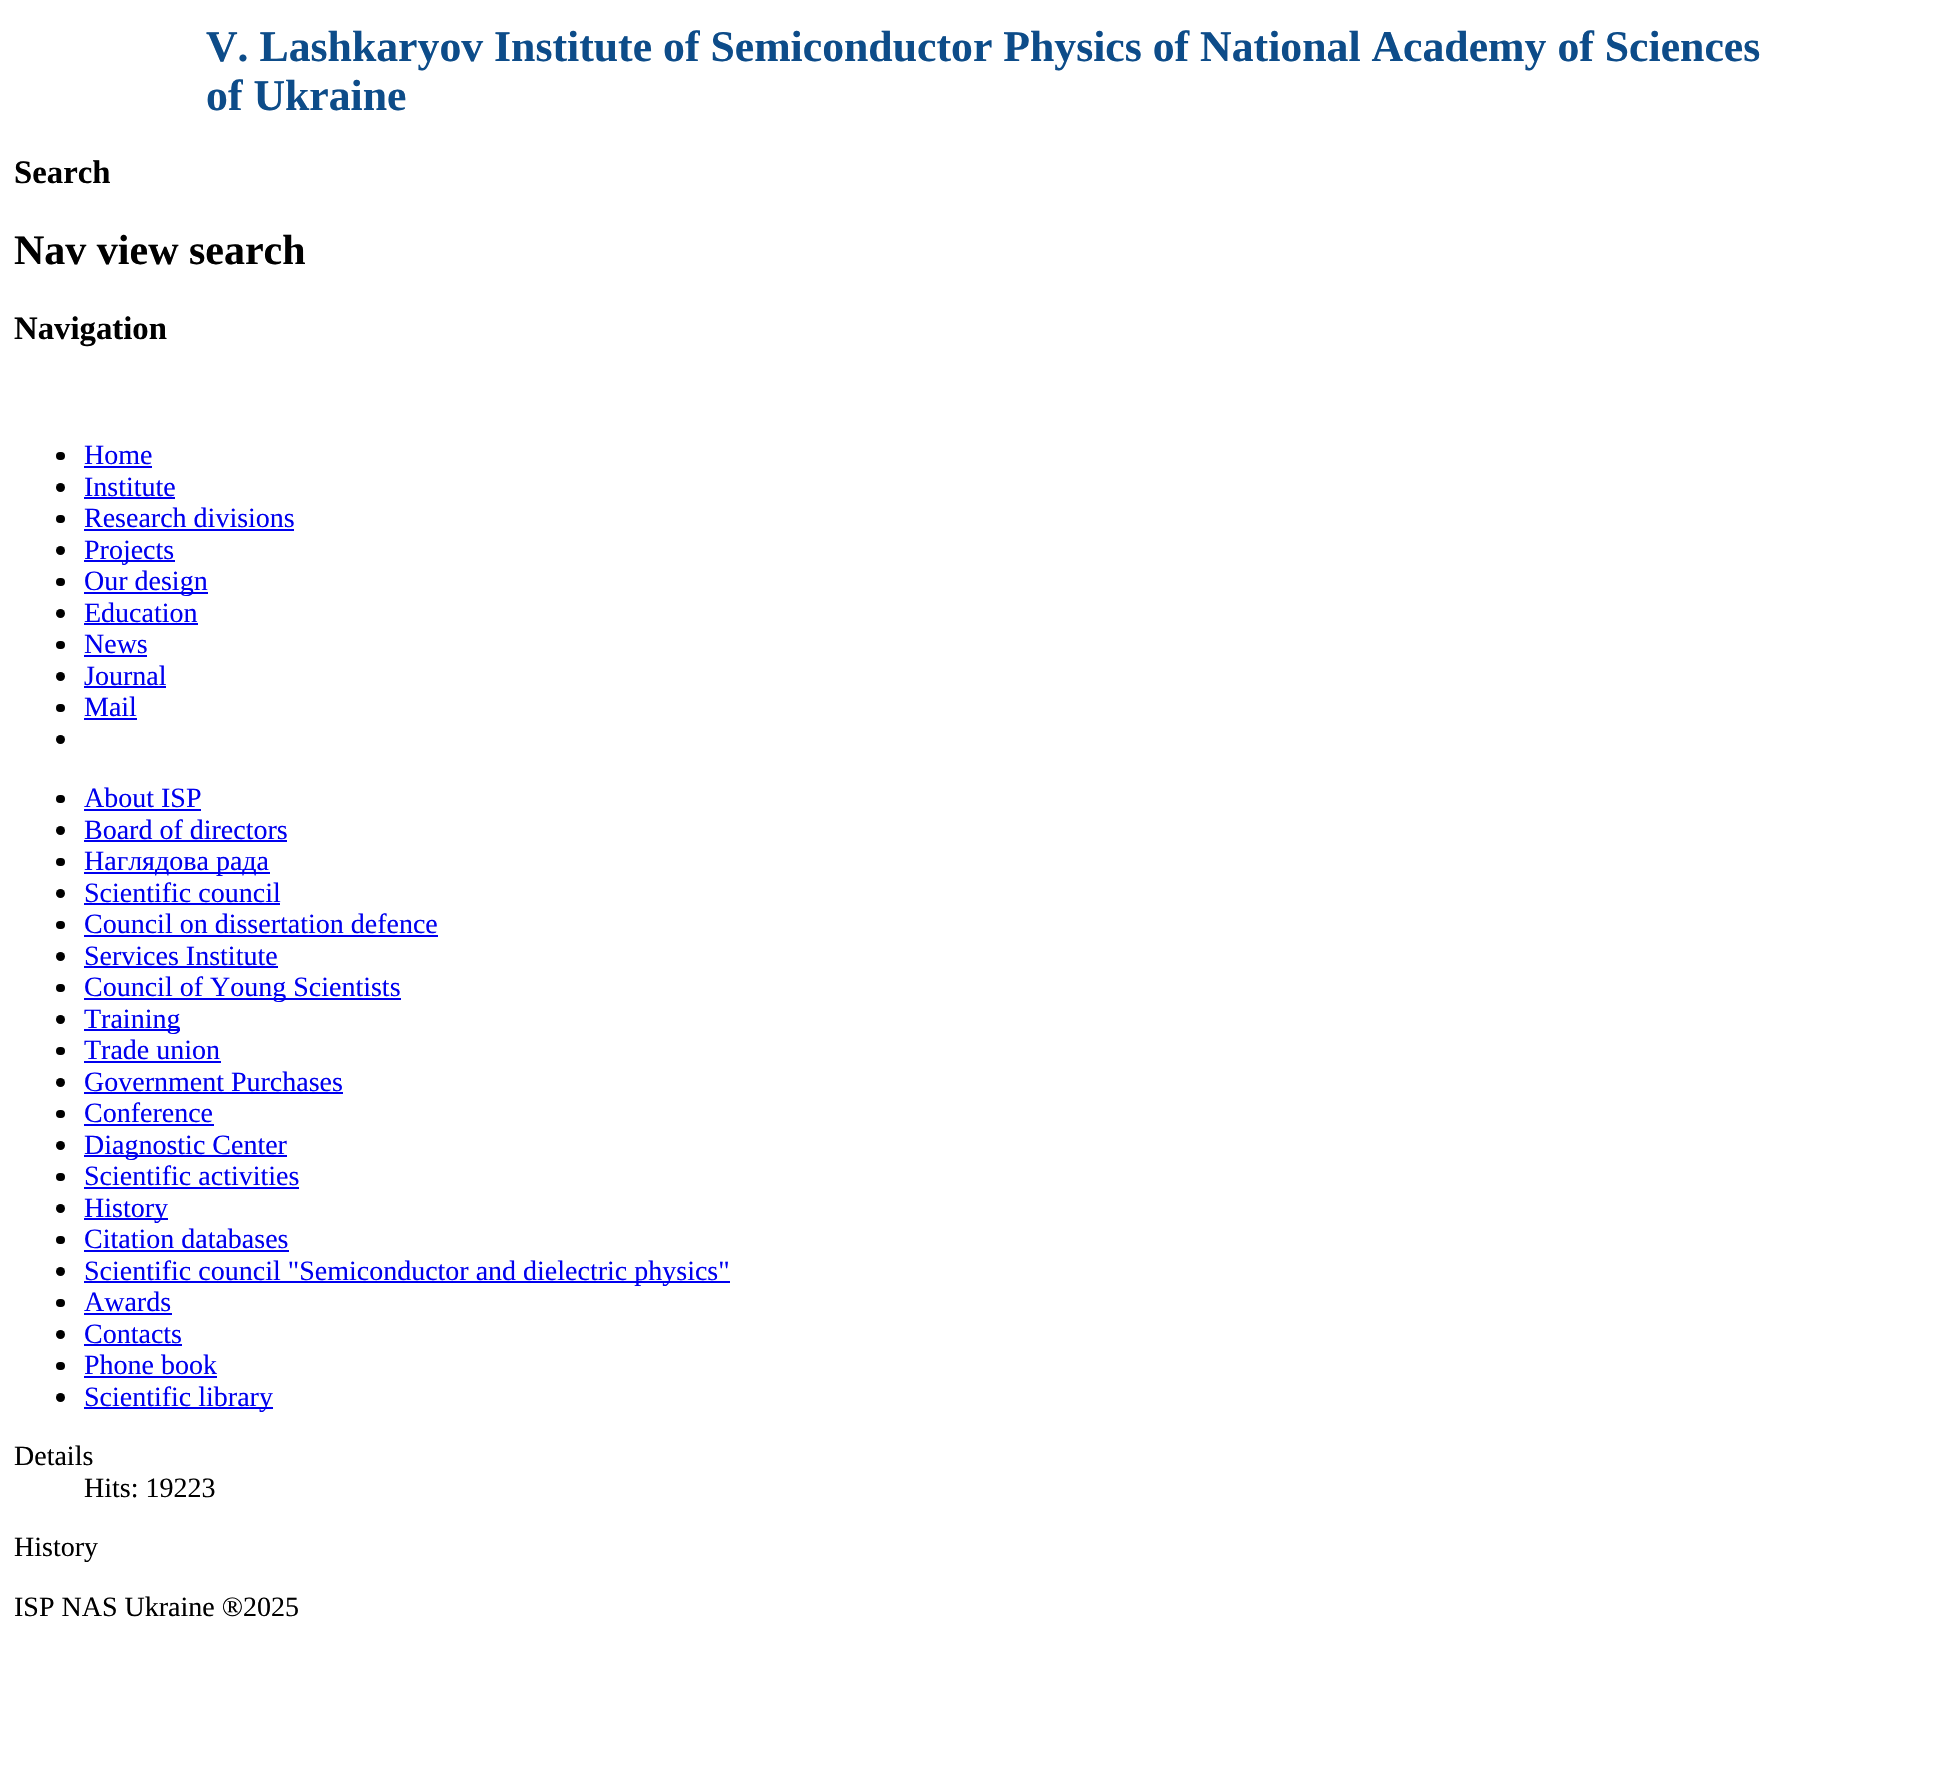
void draw(SkCanvas* canvas) {
	SkPaint fill;
	fill.setAntiAlias(true);
	auto makeFont = [&](const char* family, int weight, float size, bool italic = false) {
		SkFontStyle style(weight, SkFontStyle::kNormal_Width,
			italic ? SkFontStyle::kItalic_Slant : SkFontStyle::kUpright_Slant);
		SkFont result(fontMgr->matchFamilyStyle(family, style), size);
		result.setSubpixel(true);
		return result;
	};
	auto text = [&](const char* s, float x, float y, const SkFont& font) {
		canvas->drawString(s, x, y, font, fill);
	};
	auto box = [&](float l, float t, float r, float b) {
		canvas->drawRect(SkRect::MakeLTRB(l, t, r, b), fill);
	};
	auto roundBox = [&](float l, float t, float r, float b, float radius) {
		canvas->drawRoundRect(SkRect::MakeLTRB(l, t, r, b), radius, radius, fill);
	};
	canvas->clear(0xFFFFFFFF);
	fill.setColor(0xFF000000);
	roundBox(56, 452, 65, 460, 4);
	fill.setColor(0xFF0000EE);
	box(84, 466, 152, 468);
	fill.setColor(0xFF000000);
	canvas->drawCircle(60.5f, 487.5f, 4.5f, fill);
	fill.setColor(0xFF0000EE);
	box(84, 497, 175, 499);
	fill.setColor(0xFF000000);
	roundBox(56, 515, 65, 523, 4);
	fill.setColor(0xFF0000EE);
	box(84, 529, 294, 531);
	fill.setColor(0xFF000000);
	canvas->drawCircle(60.5f, 550.5f, 4.5f, fill);
	fill.setColor(0xFF0000EE);
	box(84, 560, 175, 562);
	fill.setColor(0xFF000000);
	roundBox(56, 578, 65, 586, 4);
	fill.setColor(0xFF0000EE);
	box(84, 592, 208, 594);
	fill.setColor(0xFF000000);
	canvas->drawCircle(60.5f, 613.5f, 4.5f, fill);
	fill.setColor(0xFF0000EE);
	box(84, 623, 198, 625);
	fill.setColor(0xFF000000);
	roundBox(56, 641, 65, 649, 4);
	fill.setColor(0xFF0000EE);
	box(84, 655, 147, 657);
	fill.setColor(0xFF000000);
	canvas->drawCircle(60.5f, 676.5f, 4.5f, fill);
	fill.setColor(0xFF0000EE);
	box(84, 686, 166, 688);
	fill.setColor(0xFF000000);
	roundBox(56, 704, 65, 712, 4);
	fill.setColor(0xFF0000EE);
	box(84, 718, 137, 720);
	fill.setColor(0xFF000000);
	canvas->drawCircle(60.5f, 739.5f, 4.5f, fill);
	roundBox(56, 795, 65, 803, 4);
	fill.setColor(0xFF0000EE);
	box(84, 809, 201, 811);
	fill.setColor(0xFF000000);
	canvas->drawCircle(60.5f, 830.5f, 4.5f, fill);
	fill.setColor(0xFF0000EE);
	box(84, 840, 287, 842);
	fill.setColor(0xFF000000);
	roundBox(56, 858, 65, 866, 4);
	fill.setColor(0xFF0000EE);
	box(84, 872, 270, 874);
	fill.setColor(0xFF000000);
	canvas->drawCircle(60.5f, 893.5f, 4.5f, fill);
	fill.setColor(0xFF0000EE);
	box(84, 903, 280, 905);
	fill.setColor(0xFF000000);
	roundBox(56, 921, 65, 929, 4);
	fill.setColor(0xFF0000EE);
	box(84, 935, 438, 937);
	fill.setColor(0xFF000000);
	canvas->drawCircle(60.5f, 956.5f, 4.5f, fill);
	fill.setColor(0xFF0000EE);
	box(84, 966, 278, 968);
	fill.setColor(0xFF000000);
	roundBox(56, 984, 65, 992, 4);
	fill.setColor(0xFF0000EE);
	box(84, 998, 401, 1000);
	fill.setColor(0xFF000000);
	canvas->drawCircle(60.5f, 1019.5f, 4.5f, fill);
	fill.setColor(0xFF0000EE);
	box(84, 1029, 180, 1031);
	fill.setColor(0xFF000000);
	roundBox(56, 1047, 65, 1055, 4);
	fill.setColor(0xFF0000EE);
	box(84, 1061, 221, 1063);
	fill.setColor(0xFF000000);
	canvas->drawCircle(60.5f, 1082.5f, 4.5f, fill);
	fill.setColor(0xFF0000EE);
	box(84, 1092, 343, 1094);
	fill.setColor(0xFF000000);
	roundBox(56, 1110, 65, 1118, 4);
	fill.setColor(0xFF0000EE);
	box(84, 1124, 214, 1126);
	fill.setColor(0xFF000000);
	canvas->drawCircle(60.5f, 1145.5f, 4.5f, fill);
	fill.setColor(0xFF0000EE);
	box(84, 1155, 287, 1157);
	fill.setColor(0xFF000000);
	roundBox(56, 1173, 65, 1181, 4);
	fill.setColor(0xFF0000EE);
	box(84, 1187, 299, 1189);
	fill.setColor(0xFF000000);
	canvas->drawCircle(60.5f, 1208.5f, 4.5f, fill);
	fill.setColor(0xFF0000EE);
	box(84, 1218, 168, 1220);
	fill.setColor(0xFF000000);
	roundBox(56, 1236, 65, 1244, 4);
	fill.setColor(0xFF0000EE);
	box(84, 1250, 289, 1252);
	fill.setColor(0xFF000000);
	canvas->drawCircle(60.5f, 1271.5f, 4.5f, fill);
	fill.setColor(0xFF0000EE);
	box(84, 1281, 730, 1283);
	fill.setColor(0xFF000000);
	roundBox(56, 1299, 65, 1307, 4);
	fill.setColor(0xFF0000EE);
	box(84, 1313, 172, 1315);
	fill.setColor(0xFF000000);
	canvas->drawCircle(60.5f, 1334.5f, 4.5f, fill);
	fill.setColor(0xFF0000EE);
	box(84, 1344, 182, 1346);
	fill.setColor(0xFF000000);
	roundBox(56, 1362, 65, 1370, 4);
	fill.setColor(0xFF0000EE);
	box(84, 1376, 217, 1378);
	fill.setColor(0xFF000000);
	canvas->drawCircle(60.5f, 1397.5f, 4.5f, fill);
	fill.setColor(0xFF0000EE);
	box(84, 1407, 273, 1409);
	auto font1 = makeFont("Liberation Serif", 700, 43.75f);
	fill.setColor(0xFF0D4C89);
	text("V. Lashkaryov Institute of Semiconductor Physics of National Academy of Sciences", 206, 61, font1);
	text("of Ukraine", 206, 110, font1);
	auto font2 = makeFont("Liberation Serif", 700, 32.75f);
	fill.setColor(0xFF000000);
	text("Search", 14, 183, font2);
	auto font3 = makeFont("Liberation Serif", 700, 42);
	text("Nav view search", 14, 264, font3);
	text("Navigation", 14, 339, font2);
	auto font4 = makeFont("Liberation Serif", 400, 28);
	fill.setColor(0xFF0000EE);
	text("Home", 84, 464, font4);
	text("Institute", 84, 496, font4);
	text("Research divisions", 84, 527, font4);
	text("Projects", 84, 559, font4);
	text("Our design", 84, 590, font4);
	text("Education", 84, 622, font4);
	text("News", 84, 653, font4);
	text("Journal", 84, 685, font4);
	text("Mail", 84, 716, font4);
	text("About ISP", 84, 807, font4);
	text("Board of directors", 84, 839, font4);
	text("Наглядова рада", 84, 870, font4);
	text("Scientific council", 84, 902, font4);
	text("Council on dissertation defence", 84, 933, font4);
	text("Services Institute", 84, 965, font4);
	text("Council of Young Scientists", 84, 996, font4);
	text("Training", 84, 1028, font4);
	text("Trade union", 84, 1059, font4);
	text("Government Purchases", 84, 1091, font4);
	text("Conference", 84, 1122, font4);
	text("Diagnostic Center", 84, 1154, font4);
	text("Scientific activities", 84, 1185, font4);
	text("History", 84, 1217, font4);
	text("Citation databases", 84, 1248, font4);
	text("Scientific council \"Semiconductor and dielectric physics\"", 84, 1280, font4);
	text("Awards", 84, 1311, font4);
	text("Contacts", 84, 1343, font4);
	text("Phone book", 84, 1374, font4);
	text("Scientific library", 84, 1406, font4);
	fill.setColor(0xFF000000);
	text("Details", 14, 1465, font4);
	text("Hits: 19223", 84, 1497, font4);
	text("History", 14, 1556, font4);
	text("ISP NAS Ukraine ®2025", 14, 1616, font4);
}
